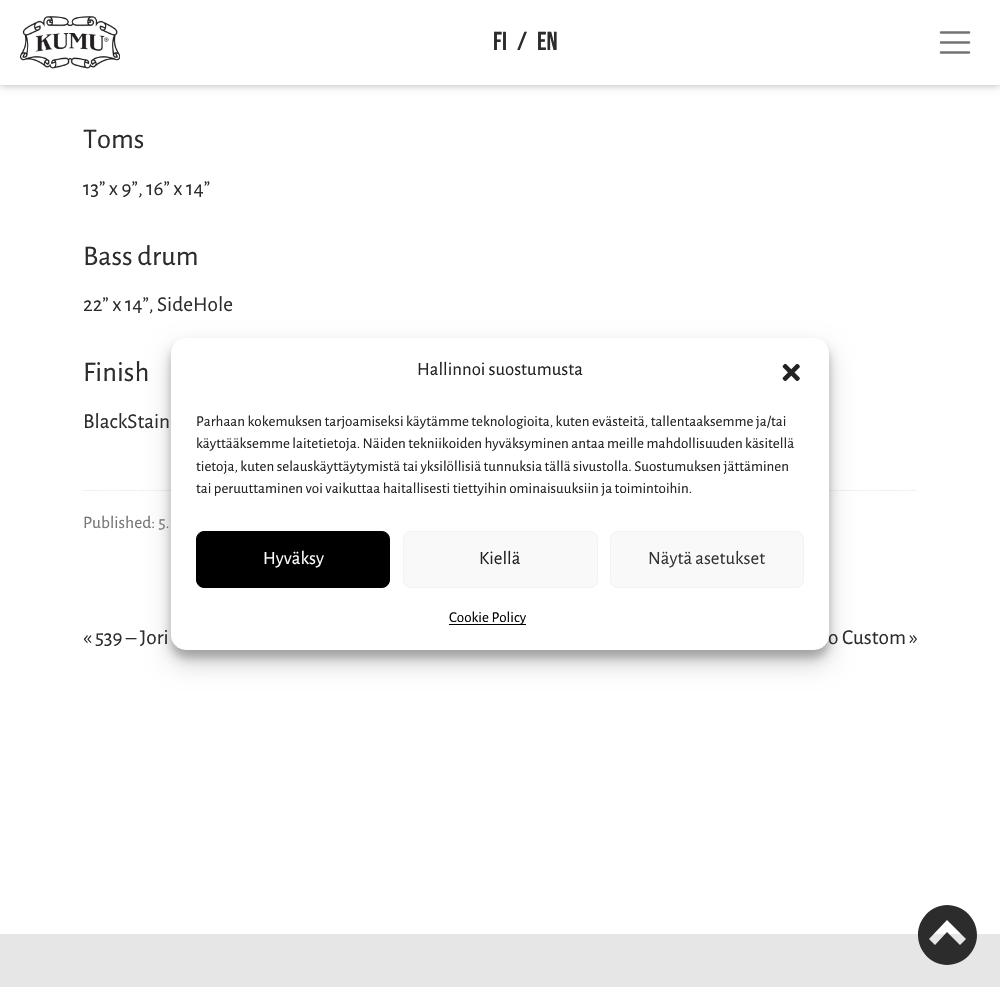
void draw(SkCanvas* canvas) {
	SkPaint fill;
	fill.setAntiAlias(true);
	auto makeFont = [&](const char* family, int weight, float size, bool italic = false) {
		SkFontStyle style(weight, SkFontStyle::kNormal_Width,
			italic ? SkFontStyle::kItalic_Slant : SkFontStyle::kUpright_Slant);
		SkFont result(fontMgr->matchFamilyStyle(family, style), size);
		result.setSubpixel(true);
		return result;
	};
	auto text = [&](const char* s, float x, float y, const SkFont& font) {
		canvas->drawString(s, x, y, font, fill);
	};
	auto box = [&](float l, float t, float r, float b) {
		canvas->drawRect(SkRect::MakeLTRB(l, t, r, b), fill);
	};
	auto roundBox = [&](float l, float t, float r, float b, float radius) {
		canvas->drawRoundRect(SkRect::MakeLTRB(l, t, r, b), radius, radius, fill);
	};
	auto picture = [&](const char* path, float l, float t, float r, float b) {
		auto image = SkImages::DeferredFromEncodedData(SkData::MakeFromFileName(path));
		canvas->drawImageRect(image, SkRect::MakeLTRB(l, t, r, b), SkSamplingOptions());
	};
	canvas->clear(0xFFFFFFFF);
	fill.setColor(0x4D000000);
	fill.setMaskFilter(SkMaskFilter::MakeBlur(kNormal_SkBlurStyle, 4));
	canvas->drawRect(SkRect::MakeLTRB(0, 0, 1000, 85), fill);
	fill.setMaskFilter(nullptr);
	fill.setColor(0xFFFFFFFF);
	box(0, 0, 1000, 85);
	picture("image0.png", 20, 16, 120, 69);
	fill.setStyle(SkPaint::kStroke_Style);
	fill.setStrokeWidth(2.5f);
	fill.setStrokeCap(SkPaint::kRound_Cap);
	fill.setColor(0xFF737373);
	canvas->drawPath(SkPathBuilder().moveTo(941, 32.5f).lineTo(969, 32.5f).moveTo(941, 42.5f).lineTo(969, 42.5f).moveTo(941, 52.5f).lineTo(969, 52.5f).detach(), fill);
	fill.setStrokeWidth(1.2f);
	fill.setStrokeCap(SkPaint::kButt_Cap);
	fill.setColor(0xFFE5E5E5);
	fill.setPathEffect(SkDashPathEffect::Make({{1.25f, 1.25f}}, 0));
	canvas->drawPath(SkPathBuilder().moveTo(82.5f, 490.5f).lineTo(917.5f, 490.5f).detach(), fill);
	fill.setPathEffect(nullptr);
	fill.setStyle(SkPaint::kFill_Style);
	fill.setColor(0xFFE6E6E6);
	box(0, 934, 1000, 987);
	fill.setColor(0x3B000000);
	fill.setMaskFilter(SkMaskFilter::MakeBlur(kNormal_SkBlurStyle, 4));
	canvas->drawRoundRect(SkRect::MakeLTRB(171, 345, 829, 658), 15, 15, fill);
	fill.setMaskFilter(nullptr);
	fill.setColor(0x30000000);
	fill.setMaskFilter(SkMaskFilter::MakeBlur(kNormal_SkBlurStyle, 12.5f));
	canvas->drawRoundRect(SkRect::MakeLTRB(171, 350, 829, 663), 15, 15, fill);
	fill.setMaskFilter(nullptr);
	fill.setColor(0xFF2C2C2C);
	canvas->drawPath(SkPathBuilder().moveTo(918, 935).cubicTo(918, 951, 931, 965, 947, 965).cubicTo(964, 965, 977, 951, 977, 935).cubicTo(977, 919, 964, 905, 947, 905).cubicTo(931, 905, 918, 919, 918, 935).close().moveTo(966, 939).lineTo(960, 945).lineTo(947, 932).lineTo(935, 945).lineTo(929, 939).lineTo(947, 920).close().detach(), fill);
	auto font1 = makeFont("Bebas Neue", 400, 26);
	text("FI", 493, 50, font1);
	text("/", 517, 50, font1);
	text("EN", 537, 50, font1);
	auto font2 = makeFont("Alegreya Sans", 400, 28.5f);
	text("Toms", 83, 148, font2);
	auto font3 = makeFont("Alegreya Sans", 400, 21.25f);
	text("13” x 9”, 16” x 14”", 83, 195, font3);
	text("Bass drum", 83, 265, font2);
	text("22” x 14”, SideHole", 83, 311, font3);
	text("Finish", 83, 381, font2);
	text("BlackStain", 83, 428, font3);
	auto font4 = makeFont("Alegreya Sans", 400, 17.5f);
	fill.setColor(0xFF757575);
	text("Published: 5.", 83, 528, font4);
	fill.setColor(0xFF2C2C2C);
	text("« 539 – Jori", 83, 644, font3);
	text("o Custom »", 828, 644, font3);
	fill.setColor(0xFFFFFFFF);
	roundBox(171, 338, 829, 650, 15);
	auto font5 = makeFont("Alegreya Sans", 400, 18.75f);
	fill.setColor(0xFF222222);
	text("Hallinnoi suostumusta", 417, 375, font5);
	picture("image1.png", 782, 363, 800, 381);
	auto font6 = makeFont("Alegreya Sans", 400, 15);
	text("Parhaan kokemuksen tarjoamiseksi käytämme teknologioita, kuten evästeitä, tallentaaksemme ja/tai", 196, 426, font6);
	text("käyttääksemme laitetietoja. Näiden tekniikoiden hyväksyminen antaa meille mahdollisuuden käsitellä", 196, 448, font6);
	text("tietoja, kuten selauskäyttäytymistä tai yksilöllisiä tunnuksia tällä sivustolla. Suostumuksen jättäminen", 196, 471, font6);
	text("tai peruuttaminen voi vaikuttaa haitallisesti tiettyihin ominaisuuksiin ja toimintoihin.", 196, 493, font6);
	fill.setColor(0xFF000000);
	canvas->drawRoundRect(SkRect::MakeLTRB(196.5f, 531.5f, 389.5f, 587.5f), 7.5f, 7.5f, fill);
	fill.setStyle(SkPaint::kStroke_Style);
	fill.setStrokeWidth(1);
	canvas->drawRoundRect(SkRect::MakeLTRB(196.5f, 531.5f, 389.5f, 587.5f), 7.5f, 7.5f, fill);
	fill.setStyle(SkPaint::kFill_Style);
	fill.setColor(0xFFFFFFFF);
	text("Hyväksy", 263, 564, font5);
	fill.setColor(0xFFF9F9F9);
	canvas->drawRoundRect(SkRect::MakeLTRB(403.5f, 531.5f, 597.5f, 587.5f), 7.5f, 7.5f, fill);
	fill.setStyle(SkPaint::kStroke_Style);
	fill.setColor(0xFFF2F2F2);
	canvas->drawRoundRect(SkRect::MakeLTRB(403.5f, 531.5f, 597.5f, 587.5f), 7.5f, 7.5f, fill);
	fill.setStyle(SkPaint::kFill_Style);
	fill.setColor(0xFF222222);
	text("Kiellä", 479, 564, font5);
	fill.setColor(0xFFF9F9F9);
	canvas->drawRoundRect(SkRect::MakeLTRB(610.5f, 531.5f, 803.5f, 587.5f), 7.5f, 7.5f, fill);
	fill.setStyle(SkPaint::kStroke_Style);
	fill.setColor(0xFFF2F2F2);
	canvas->drawRoundRect(SkRect::MakeLTRB(610.5f, 531.5f, 803.5f, 587.5f), 7.5f, 7.5f, fill);
	fill.setStyle(SkPaint::kFill_Style);
	fill.setColor(0xFF333333);
	text("Näytä asetukset", 648, 564, font5);
	fill.setColor(0xFF000000);
	box(449, 624, 526, 625);
	text("Cookie Policy", 449, 622, font6);
}
